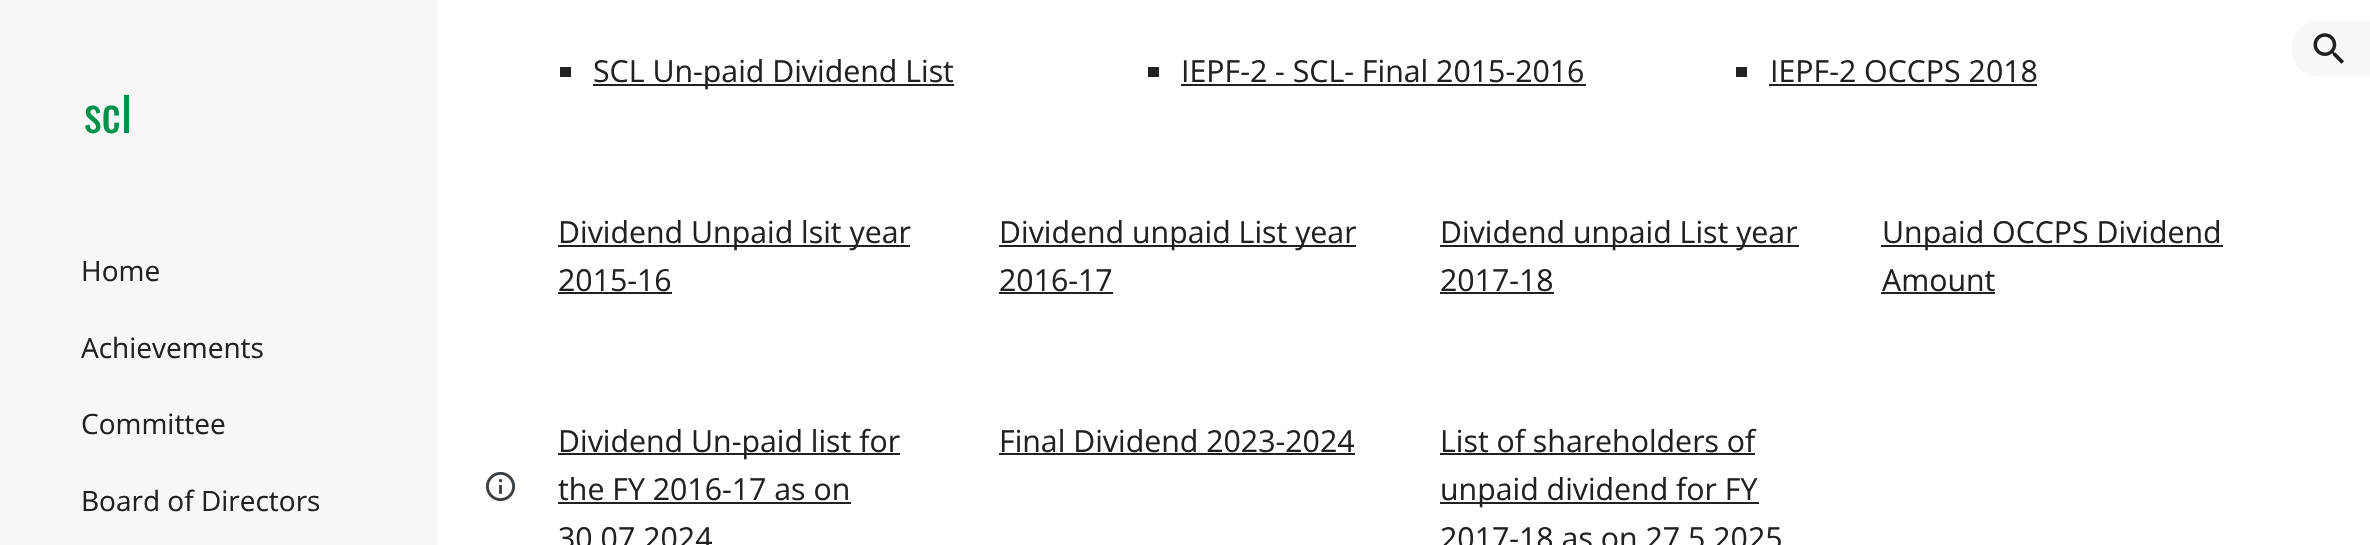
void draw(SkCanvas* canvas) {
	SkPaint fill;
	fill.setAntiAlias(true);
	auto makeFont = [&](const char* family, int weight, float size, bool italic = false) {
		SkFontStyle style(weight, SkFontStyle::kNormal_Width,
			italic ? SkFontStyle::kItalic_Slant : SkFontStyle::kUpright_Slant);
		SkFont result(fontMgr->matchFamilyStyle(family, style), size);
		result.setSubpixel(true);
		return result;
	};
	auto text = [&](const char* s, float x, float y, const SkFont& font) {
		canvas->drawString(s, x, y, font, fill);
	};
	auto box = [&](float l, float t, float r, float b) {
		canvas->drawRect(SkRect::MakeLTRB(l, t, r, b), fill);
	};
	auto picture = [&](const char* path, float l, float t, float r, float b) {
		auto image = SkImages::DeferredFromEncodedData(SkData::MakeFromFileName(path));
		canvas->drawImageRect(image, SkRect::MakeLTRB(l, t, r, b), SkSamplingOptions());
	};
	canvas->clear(0xFFFFFFFF);
	fill.setColor(0xFFF7F7F7);
	canvas->drawPath(SkPathBuilder().moveTo(2319, 21).lineTo(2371, 21).lineTo(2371, 77).lineTo(2319, 77).cubicTo(2303.5f, 77, 2291, 64.5f, 2291, 49).cubicTo(2291, 33.5f, 2303.5f, 21, 2319, 21).close().detach(), fill);
	picture("image0.png", 2313, 33, 2344, 64);
	box(0, 0, 438, 545);
	picture("image1.png", 485, 471, 516, 502);
	fill.setColor(0xFF212121);
	box(560, 67, 571, 77);
	box(593, 84, 954, 86);
	box(1148, 67, 1159, 77);
	box(1181, 84, 1586, 86);
	box(1736, 67, 1747, 77);
	box(1769, 84, 2037, 86);
	box(558, 245, 910, 247);
	box(558, 292, 672, 294);
	box(999, 245, 1356, 247);
	box(999, 292, 1113, 294);
	box(1440, 245, 1799, 247);
	box(1440, 292, 1554, 294);
	box(1881, 245, 2223, 247);
	box(1881, 292, 1995, 294);
	box(558, 453, 900, 455);
	box(558, 502, 851, 504);
	box(999, 453, 1355, 455);
	box(1440, 453, 1755, 455);
	box(1440, 502, 1759, 504);
	auto font1 = makeFont("Oswald", 400, 47);
	fill.setColor(0xFF00914C);
	text("scl", 84, 133, font1);
	auto font2 = makeFont("Open Sans", 400, 28);
	fill.setColor(0xFF212121);
	text("Home", 81, 281, font2);
	text("Achievements", 81, 358, font2);
	text("Committee", 81, 434, font2);
	text("Board of Directors", 81, 511, font2);
	auto font3 = makeFont("Open Sans", 400, 30.3f);
	text("SCL Un-paid Dividend List", 593, 82, font3);
	text("IEPF-2 - SCL- Final 2015-2016", 1181, 82, font3);
	text("IEPF-2 OCCPS 2018", 1770, 82, font3);
	text("Dividend Unpaid lsit year", 558, 243, font3);
	text("2015-16", 558, 291, font3);
	text("Dividend unpaid List year", 999, 243, font3);
	text("2016-17", 999, 291, font3);
	text("Dividend unpaid List year", 1440, 243, font3);
	text("2017-18", 1440, 291, font3);
	text("Unpaid OCCPS Dividend", 1882, 243, font3);
	text("Amount", 1882, 291, font3);
	text("Dividend Un-paid list for", 558, 452, font3);
	text("the FY 2016-17 as on", 558, 500, font3);
	text("30.07.2024", 558, 549, font3);
	text("Final Dividend 2023-2024", 999, 452, font3);
	text("List of shareholders of", 1440, 452, font3);
	text("unpaid dividend for FY", 1440, 500, font3);
	text("2017-18 as on 27.5.2025", 1440, 549, font3);
}
